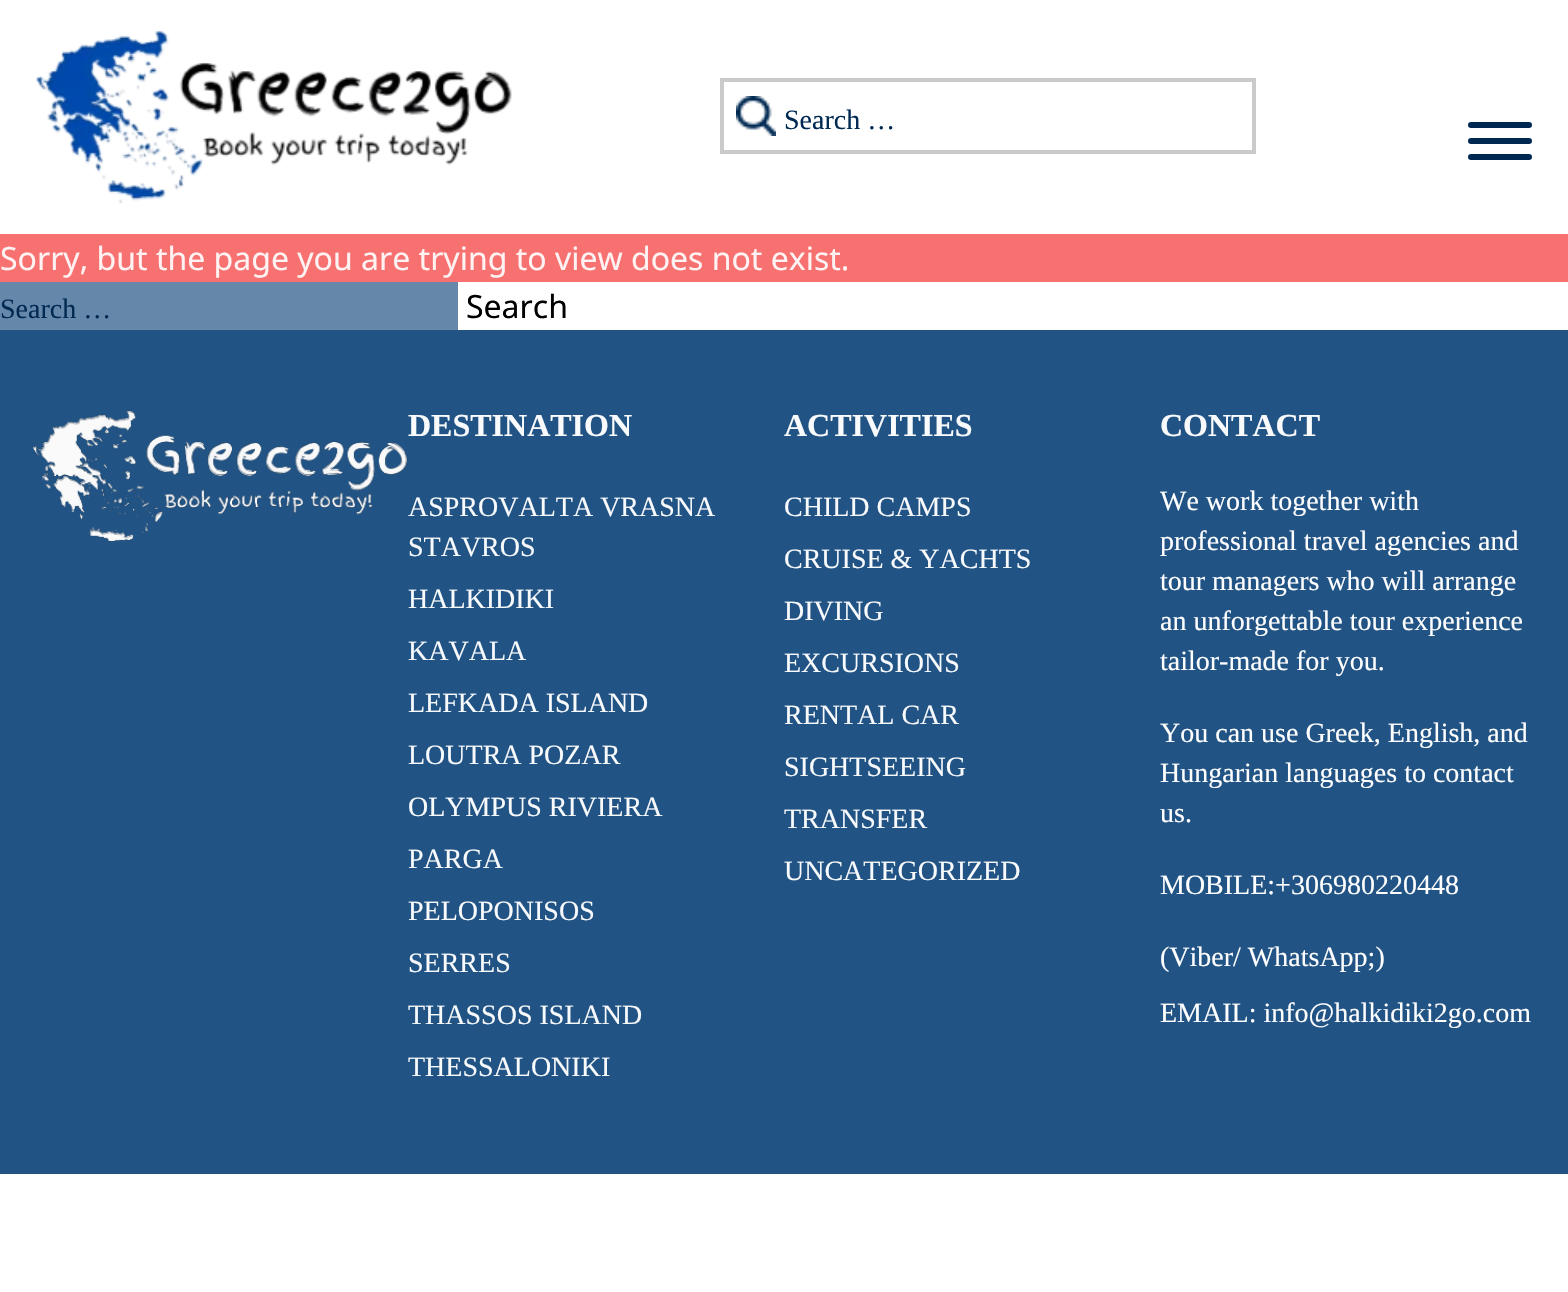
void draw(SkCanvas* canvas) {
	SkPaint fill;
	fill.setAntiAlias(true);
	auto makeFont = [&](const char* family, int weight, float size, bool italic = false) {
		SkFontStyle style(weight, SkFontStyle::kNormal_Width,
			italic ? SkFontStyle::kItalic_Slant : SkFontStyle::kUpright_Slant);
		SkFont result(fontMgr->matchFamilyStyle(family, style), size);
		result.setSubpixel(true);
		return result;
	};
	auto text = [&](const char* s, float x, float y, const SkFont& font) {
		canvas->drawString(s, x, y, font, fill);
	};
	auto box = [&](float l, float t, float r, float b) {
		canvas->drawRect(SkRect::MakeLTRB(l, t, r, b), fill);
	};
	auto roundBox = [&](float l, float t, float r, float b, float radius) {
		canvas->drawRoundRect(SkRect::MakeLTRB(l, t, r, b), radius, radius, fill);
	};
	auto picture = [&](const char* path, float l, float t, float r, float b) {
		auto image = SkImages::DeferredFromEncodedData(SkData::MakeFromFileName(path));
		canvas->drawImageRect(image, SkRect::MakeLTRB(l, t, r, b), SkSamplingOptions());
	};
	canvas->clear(0xFFFFFFFF);
	picture("image0.png", 36, 30, 512, 204);
	picture("image1.png", 736, 96, 776, 136);
	fill.setStyle(SkPaint::kStroke_Style);
	fill.setStrokeWidth(4);
	fill.setColor(0xFFCACACA);
	canvas->drawRect(SkRect::MakeLTRB(722, 80, 1254, 152), fill);
	fill.setStyle(SkPaint::kFill_Style);
	fill.setColor(0xFF002952);
	roundBox(1468, 122, 1532, 128, 3);
	roundBox(1468, 138, 1532, 144, 3);
	roundBox(1468, 154, 1532, 160, 3);
	fill.setColor(0xFFF87171);
	box(0, 234, 1568, 282);
	fill.setColor(0xFF6487AA);
	box(0, 282, 458, 330);
	fill.setColor(0xFF215385);
	box(0, 330, 1568, 1174);
	picture("image2.png", 32, 410, 408, 542);
	auto font1 = makeFont("Liberation Serif", 400, 28);
	fill.setColor(0xFF002952);
	text("Search …", 784, 129, font1);
	auto font2 = makeFont("Noto Sans", 400, 32);
	fill.setColor(0xFFFEF2F2);
	text("Sorry, but the page you are trying to view does not exist.", 0, 270, font2);
	fill.setColor(0xFF002952);
	text("Search …", 0, 318, font1);
	fill.setColor(0xFF000000);
	text("Search", 466, 318, font2);
	auto font3 = makeFont("Liberation Serif", 700, 32);
	fill.setColor(0xFFF8FAFC);
	text("DESTINATION", 408, 436, font3);
	text("ASPROVALTA VRASNA", 408, 516, font1);
	text("STAVROS", 408, 556, font1);
	text("HALKIDIKI", 408, 608, font1);
	text("KAVALA", 408, 660, font1);
	text("LEFKADA ISLAND", 408, 712, font1);
	text("LOUTRA POZAR", 408, 764, font1);
	text("OLYMPUS RIVIERA", 408, 816, font1);
	text("PARGA", 408, 868, font1);
	text("PELOPONISOS", 408, 920, font1);
	text("SERRES", 408, 972, font1);
	text("THASSOS ISLAND", 408, 1024, font1);
	text("THESSALONIKI", 408, 1076, font1);
	text("ACTIVITIES", 784, 436, font3);
	text("CHILD CAMPS", 784, 516, font1);
	text("CRUISE & YACHTS", 784, 568, font1);
	text("DIVING", 784, 620, font1);
	text("EXCURSIONS", 784, 672, font1);
	text("RENTAL CAR", 784, 724, font1);
	text("SIGHTSEEING", 784, 776, font1);
	text("TRANSFER", 784, 828, font1);
	text("UNCATEGORIZED", 784, 880, font1);
	text("CONTACT", 1160, 436, font3);
	fill.setColor(0xFFFFFFFF);
	text("We work together with", 1160, 510, font1);
	text("professional travel agencies and", 1160, 550, font1);
	text("tour managers who will arrange", 1160, 590, font1);
	text("an unforgettable tour experience", 1160, 630, font1);
	text("tailor-made for you.", 1160, 670, font1);
	text("You can use Greek, English, and", 1160, 742, font1);
	text("Hungarian languages to contact", 1160, 782, font1);
	text("us.", 1160, 822, font1);
	text("MOBILE:+306980220448", 1160, 894, font1);
	text("(Viber/ WhatsApp;)", 1160, 966, font1);
	text("EMAIL: info@halkidiki2go.com", 1160, 1022, font1);
}
